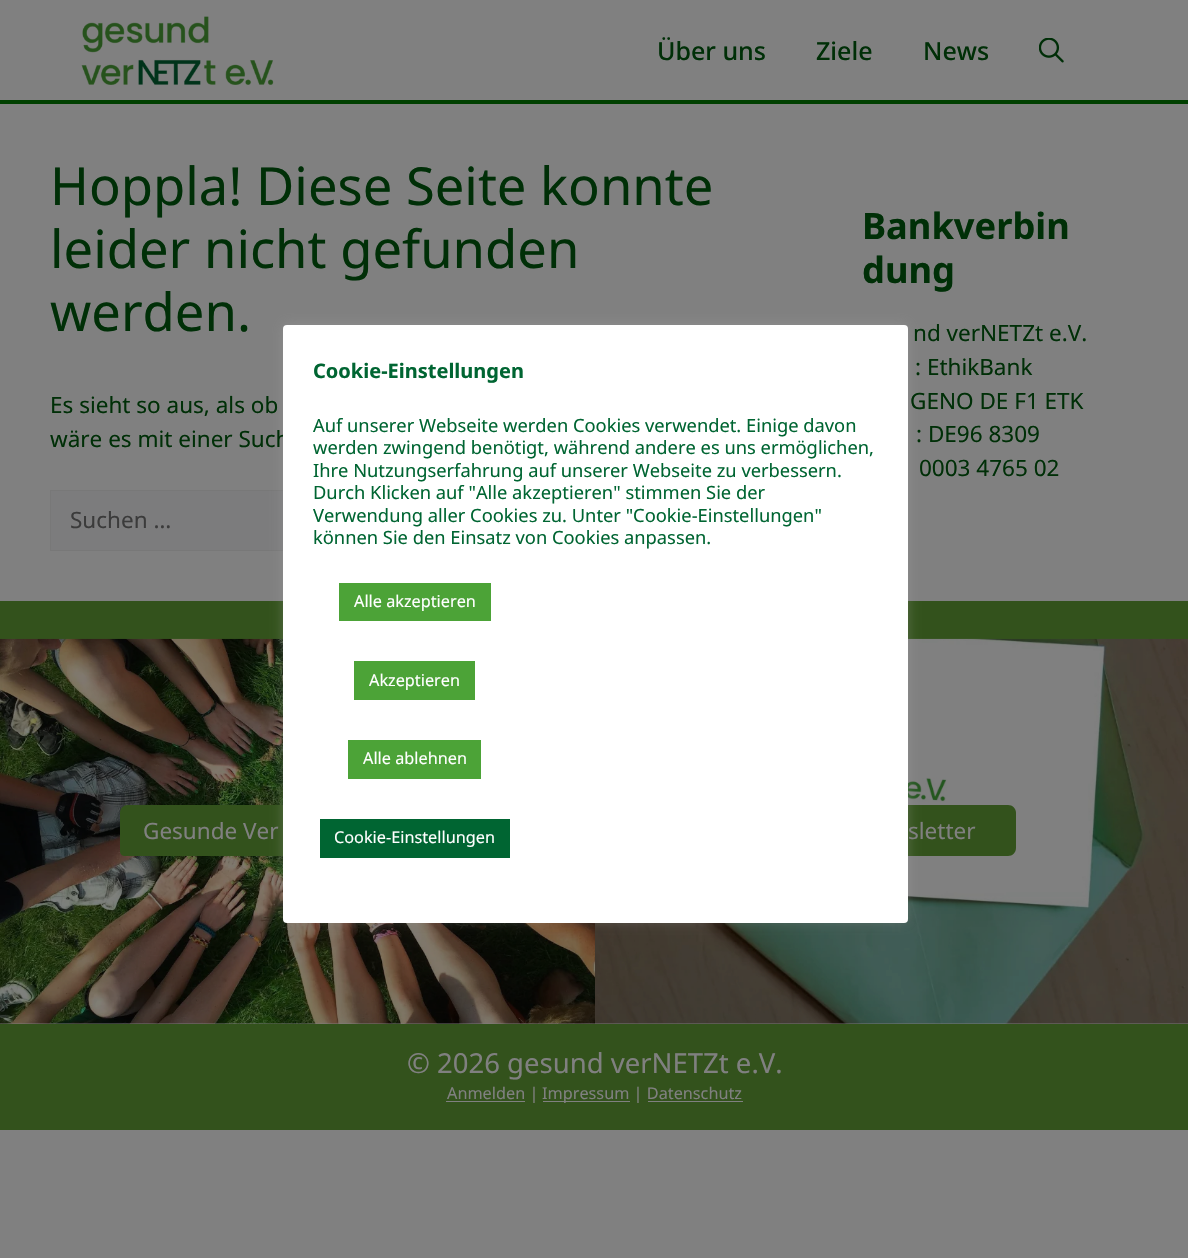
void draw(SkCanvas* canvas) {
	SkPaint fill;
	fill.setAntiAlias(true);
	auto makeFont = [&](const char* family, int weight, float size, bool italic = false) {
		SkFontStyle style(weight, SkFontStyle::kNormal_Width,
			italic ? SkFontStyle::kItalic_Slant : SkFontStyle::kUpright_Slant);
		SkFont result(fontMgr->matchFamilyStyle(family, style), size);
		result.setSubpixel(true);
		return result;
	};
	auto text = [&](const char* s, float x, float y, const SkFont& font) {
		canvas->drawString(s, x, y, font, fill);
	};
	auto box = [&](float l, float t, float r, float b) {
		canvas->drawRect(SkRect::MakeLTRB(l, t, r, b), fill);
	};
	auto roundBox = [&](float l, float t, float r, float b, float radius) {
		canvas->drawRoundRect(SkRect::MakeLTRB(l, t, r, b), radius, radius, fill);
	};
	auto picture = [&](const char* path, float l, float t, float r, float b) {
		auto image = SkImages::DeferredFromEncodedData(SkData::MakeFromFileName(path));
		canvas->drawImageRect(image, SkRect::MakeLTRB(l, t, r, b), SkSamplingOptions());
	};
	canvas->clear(0xFF808080);
	fill.setColor(0xFF004000);
	box(0, 100, 1188, 104);
	picture("image0.png", 81, 16, 274, 85);
	picture("image1.png", 1039, 38, 1064, 63);
	fill.setColor(0xFF7C7C7D);
	box(51, 491, 283, 550);
	fill.setStyle(SkPaint::kStroke_Style);
	fill.setStrokeWidth(1);
	fill.setColor(0xFF787878);
	canvas->drawRect(SkRect::MakeLTRB(50.5f, 490.5f, 410.5f, 550.5f), fill);
	fill.setStyle(SkPaint::kFill_Style);
	fill.setColor(0xFF33521C);
	box(0, 601, 283, 639);
	picture("image2.png", 0, 638, 595, 1024);
	canvas->drawPath(SkPathBuilder().moveTo(128, 805).lineTo(466, 805).cubicTo(470.5f, 805, 474, 808.5f, 474, 813).lineTo(474, 848).cubicTo(474, 852.5f, 470.5f, 856, 466, 856).lineTo(125, 856).cubicTo(122, 856, 120, 854, 120, 851).lineTo(120, 813).cubicTo(120, 808.5f, 123.5f, 805, 128, 805).close().detach(), fill);
	box(908, 601, 1188, 639);
	picture("image3.png", 595, 638, 1188, 1024);
	canvas->drawPath(SkPathBuilder().moveTo(776, 805).lineTo(1008, 805).cubicTo(1012.5f, 805, 1016, 808.5f, 1016, 813).lineTo(1016, 848).cubicTo(1016, 852.5f, 1012.5f, 856, 1008, 856).lineTo(773, 856).cubicTo(770, 856, 768, 854, 768, 851).lineTo(768, 813).cubicTo(768, 808.5f, 771.5f, 805, 776, 805).close().detach(), fill);
	fill.setColor(0x4DACABAB);
	fill.setMaskFilter(SkMaskFilter::MakeBlur(kNormal_SkBlurStyle, 6));
	canvas->drawRoundRect(SkRect::MakeLTRB(283, 324, 908, 921), 4, 4, fill);
	fill.setMaskFilter(nullptr);
	fill.setColor(0xFF33521C);
	box(0, 1024, 1188, 1130);
	fill.setColor(0xFF808080);
	box(446, 1101, 525, 1102);
	box(543, 1101, 630, 1102);
	box(648, 1101, 743, 1102);
	auto font1 = makeFont("Noto Sans", 500, 25);
	fill.setColor(0xFF002F07);
	text("Über uns", 657, 60, font1);
	text("Ziele", 816, 60, font1);
	text("News", 923, 60, font1);
	auto font2 = makeFont("Noto Sans", 400, 52.5f);
	text("Hoppla! Diese Seite konnte", 50, 205, font2);
	text("leider nicht gefunden", 50, 268, font2);
	text("werden.", 50, 331, font2);
	auto font3 = makeFont("Noto Sans", 400, 22.5f);
	text("Es sieht so aus, als ob", 50, 413, font3);
	text("wäre es mit einer Such", 50, 447, font3);
	fill.setColor(0xFF3B3B3B);
	text("Suchen …", 70, 528, font3);
	auto font4 = makeFont("Noto Sans", 700, 36.25f);
	fill.setColor(0xFF002F07);
	text("Bankverbin", 862, 239, font4);
	text("dung", 862, 283, font4);
	text("nd verNETZt e.V.", 913, 341, font3);
	text(": EthikBank", 915, 375, font3);
	text("GENO DE F1 ETK", 910, 409, font3);
	text(": DE96 8309", 916, 442, font3);
	text("0003 4765 02", 919, 476, font3);
	fill.setColor(0xFFFFFFFF);
	roundBox(283, 325, 908, 923, 4);
	auto font5 = makeFont("Noto Sans", 700, 20);
	fill.setColor(0xFF006532);
	text("Cookie-Einstellungen", 313, 378, font5);
	auto font6 = makeFont("Noto Sans", 400, 18.3f);
	text("Auf unserer Webseite werden Cookies verwendet. Einige davon", 313, 432, font6);
	text("werden zwingend benötigt, während andere es uns ermöglichen,", 313, 454, font6);
	text("Ihre Nutzungserfahrung auf unserer Webseite zu verbessern.", 313, 477, font6);
	text("Durch Klicken auf \"Alle akzeptieren\" stimmen Sie der", 313, 499, font6);
	text("Verwendung aller Cookies zu. Unter \"Cookie-Einstellungen\"", 313, 522, font6);
	text("können Sie den Einsatz von Cookies anpassen.", 313, 544, font6);
	fill.setColor(0xFF4CA337);
	box(339, 583, 491, 621);
	auto font7 = makeFont("Noto Sans", 400, 16.25f);
	fill.setColor(0xFFFFFFFF);
	text("Alle akzeptieren", 354, 607, font7);
	fill.setColor(0xFF4CA337);
	box(354, 661, 475, 700);
	fill.setColor(0xFFFFFFFF);
	text("Akzeptieren", 369, 686, font7);
	fill.setColor(0xFF4CA337);
	box(348, 740, 481, 779);
	fill.setColor(0xFFFFFFFF);
	text("Alle ablehnen", 363, 764, font7);
	fill.setColor(0xFF006532);
	box(320, 819, 510, 858);
	fill.setColor(0xFFFFFFFF);
	text("Cookie-Einstellungen", 334, 843, font7);
	fill.setColor(0xFF808080);
	text("Gesunde Ver", 143, 839, font3);
	text("sletter", 908, 839, font3);
	auto font8 = makeFont("Noto Sans", 400, 27.5f);
	text("© 2026 gesund verNETZt e.V.", 407, 1073, font8);
	text("Anmelden |", 447, 1099, font7);
	text("Impressum | Datenschutz", 542, 1099, font7);
}
